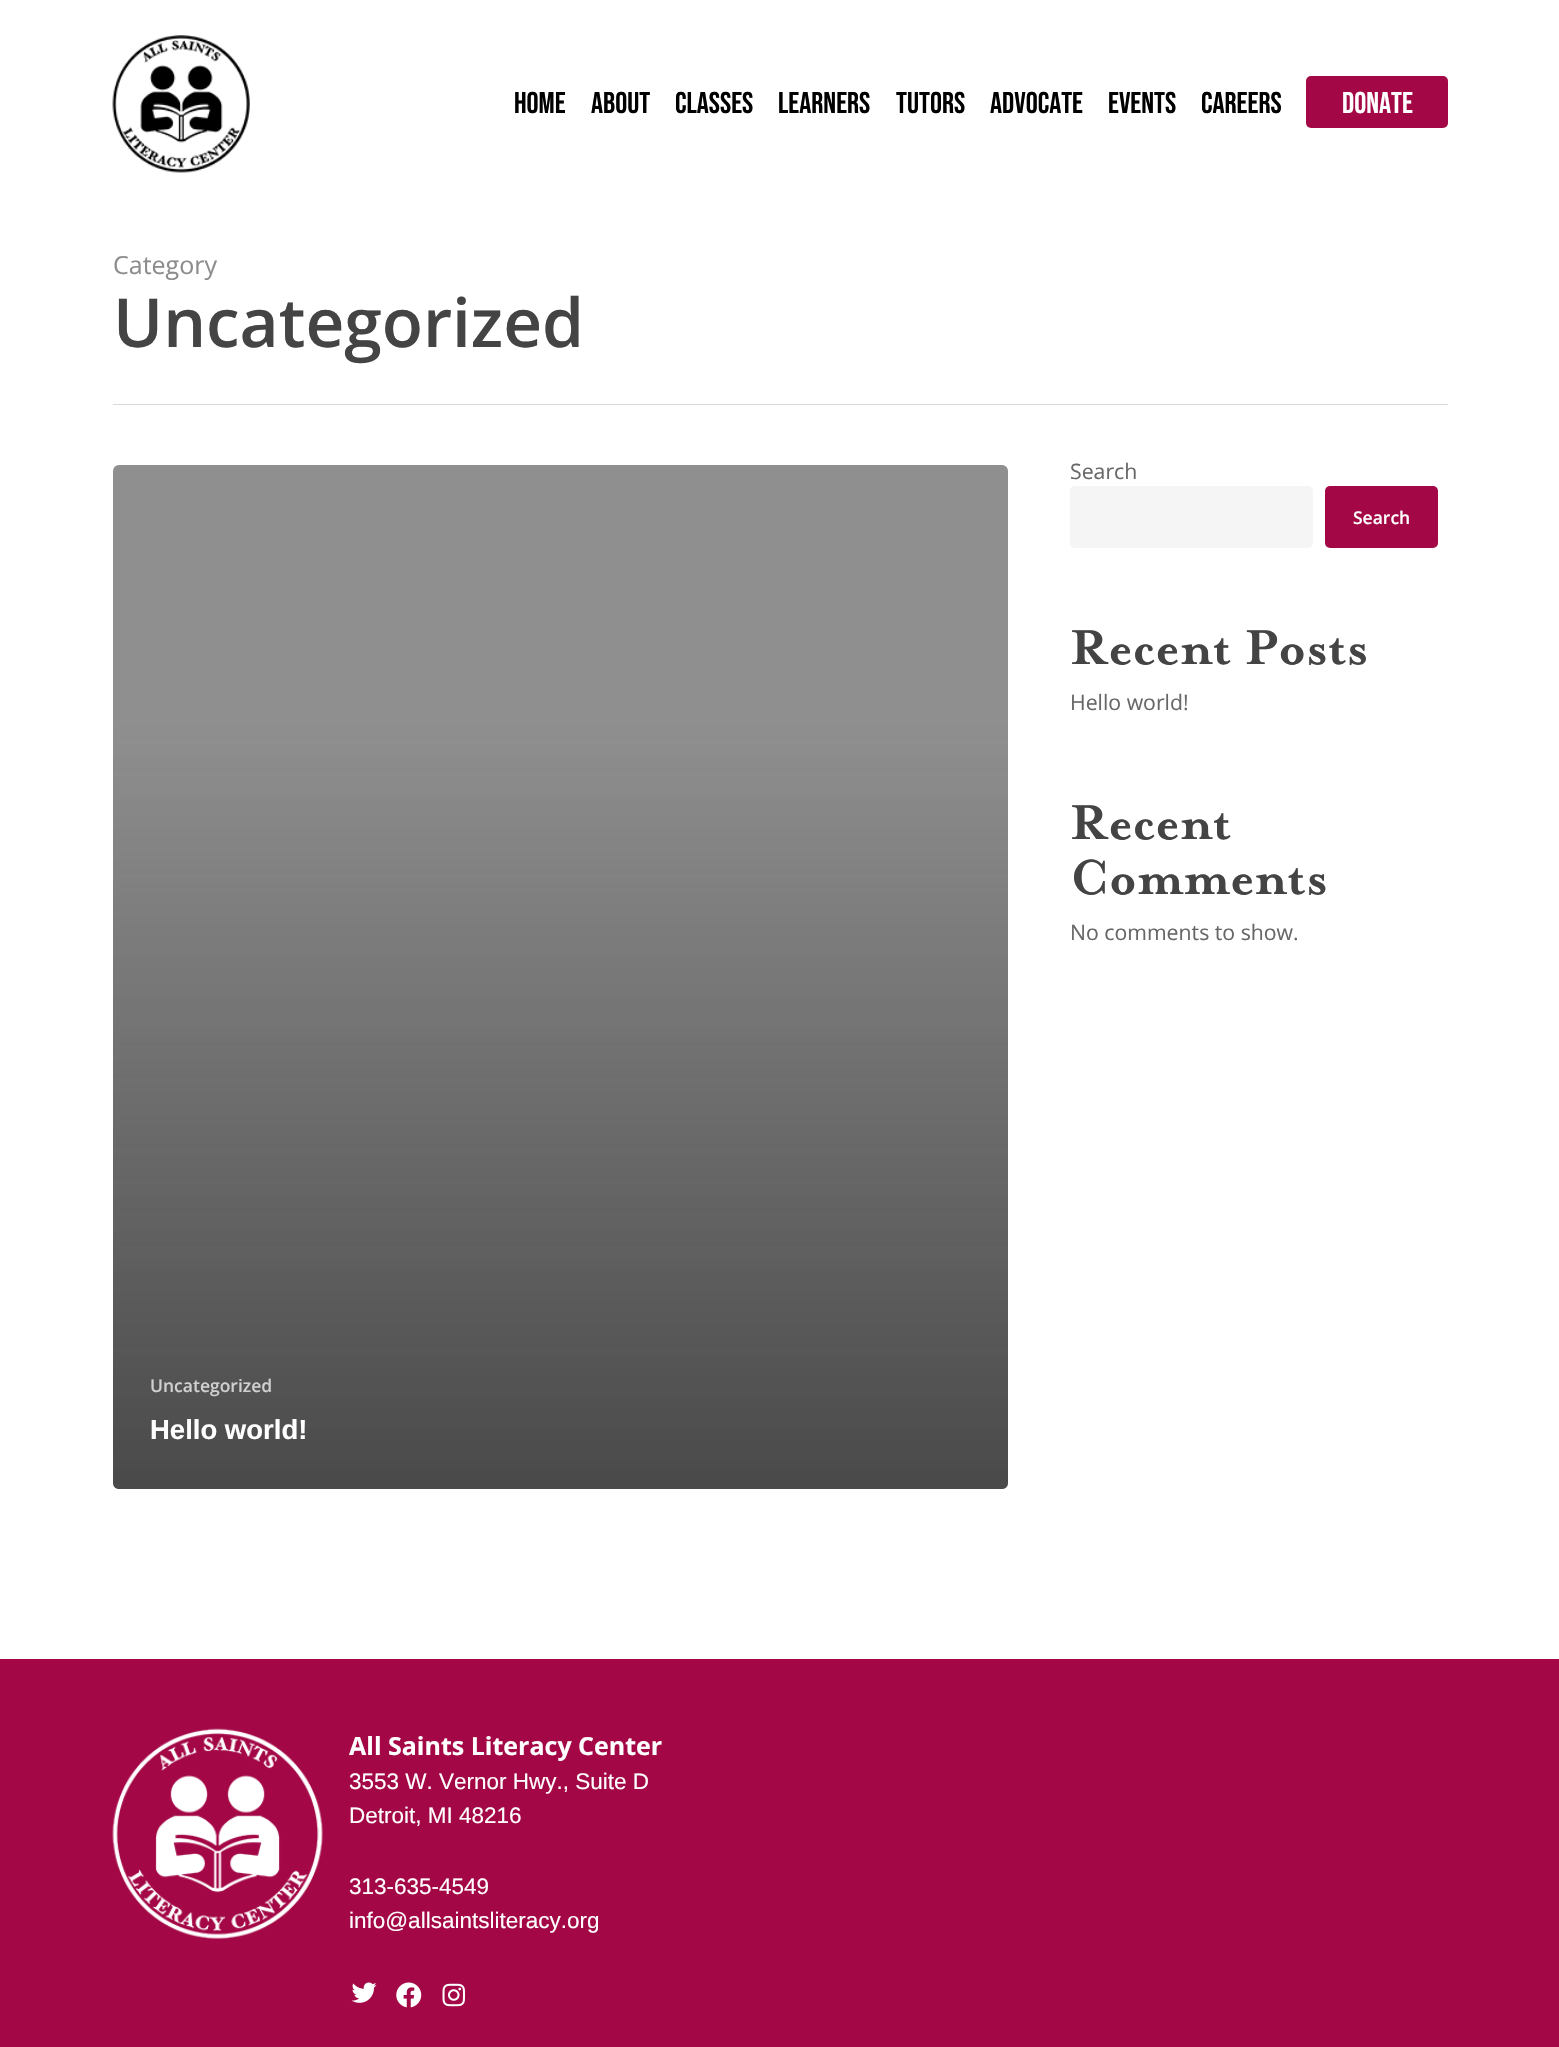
void draw(SkCanvas* canvas) {
	SkPaint fill;
	fill.setAntiAlias(true);
	auto makeFont = [&](const char* family, int weight, float size, bool italic = false) {
		SkFontStyle style(weight, SkFontStyle::kNormal_Width,
			italic ? SkFontStyle::kItalic_Slant : SkFontStyle::kUpright_Slant);
		SkFont result(fontMgr->matchFamilyStyle(family, style), size);
		result.setSubpixel(true);
		return result;
	};
	auto text = [&](const char* s, float x, float y, const SkFont& font) {
		canvas->drawString(s, x, y, font, fill);
	};
	auto box = [&](float l, float t, float r, float b) {
		canvas->drawRect(SkRect::MakeLTRB(l, t, r, b), fill);
	};
	auto roundBox = [&](float l, float t, float r, float b, float radius) {
		canvas->drawRoundRect(SkRect::MakeLTRB(l, t, r, b), radius, radius, fill);
	};
	auto picture = [&](const char* path, float l, float t, float r, float b) {
		auto image = SkImages::DeferredFromEncodedData(SkData::MakeFromFileName(path));
		canvas->drawImageRect(image, SkRect::MakeLTRB(l, t, r, b), SkSamplingOptions());
	};
	canvas->clear(0xFFFFFFFF);
	picture("image0.png", 112, 35, 250, 173);
	fill.setColor(0xFFA30746);
	roundBox(1306, 76, 1448, 128, 5);
	fill.setColor(0xFFD9D9D9);
	box(113, 404, 1448, 405);
	fill.setColor(0xFFF5F5F5);
	roundBox(1070, 486, 1313, 548, 5);
	fill.setColor(0xFFA30746);
	roundBox(1325, 486, 1438, 548, 5);
	fill.setColor(0xFFB3B3B3);
	roundBox(113, 465, 1008, 1489, 6);
	fill.setColor(0x33000000);
	roundBox(113, 465, 1008, 1489, 6);
	{
		const SkColor colors[] = {0x00232323, 0xA6232323};
		const float stops[] = {0, 1};
		const SkPoint ends[] = {{562, 723}, {562, 1494}};
		fill.setShader(SkGradientShader::MakeLinear(ends, colors, stops, 2, SkTileMode::kClamp));
		fill.setAlpha(255);
	}
	canvas->drawPath(SkPathBuilder().moveTo(113, 723).lineTo(1008, 723).lineTo(1008, 1483).cubicTo(1008, 1486.5f, 1005.5f, 1489, 1002, 1489).lineTo(119, 1489).cubicTo(115.5f, 1489, 113, 1486.5f, 113, 1483).close().detach(), fill);
	fill.setShader(nullptr);
	fill.setColor(0xFFA30746);
	box(0, 1659, 1559, 2047);
	picture("image1.png", 112, 1728, 323, 1939);
	picture("image2.png", 351, 1982, 377, 2003);
	picture("image3.png", 396, 1982, 422, 2008);
	picture("image4.png", 442, 1983, 465, 2007);
	auto font1 = makeFont("Bebas Neue", 400, 30);
	fill.setColor(0xFF000000);
	text("HOME", 514, 113, font1);
	text("ABOUT", 591, 113, font1);
	text("CLASSES", 675, 113, font1);
	text("LEARNERS", 778, 113, font1);
	text("TUTORS", 896, 113, font1);
	text("ADVOCATE", 990, 113, font1);
	text("EVENTS", 1108, 113, font1);
	text("CAREERS", 1201, 113, font1);
	fill.setColor(0xFFFFFFFF);
	text("DONATE", 1342, 113, font1);
	auto font2 = makeFont("Open Sans", 400, 25);
	fill.setColor(0xFF8C8C8C);
	text("Category", 113, 274, font2);
	auto font3 = makeFont("Open Sans", 600, 67.5f);
	fill.setColor(0xFF444444);
	text("Uncategorized", 113, 347, font3);
	auto font4 = makeFont("Open Sans", 400, 21.25f);
	fill.setColor(0xFF676767);
	text("Search", 1070, 479, font4);
	auto font5 = makeFont("Open Sans", 600, 17.5f);
	fill.setColor(0xFFFFFFFF);
	text("Search", 1353, 524, font5);
	auto font6 = makeFont("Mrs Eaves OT", 700, 56.25f);
	fill.setColor(0xFF444444);
	text("Recent Posts", 1070, 664, font6);
	fill.setColor(0xFF676767);
	text("Hello world!", 1070, 710, font4);
	fill.setColor(0xFF444444);
	text("Recent", 1070, 839, font6);
	text("Comments", 1070, 894, font6);
	fill.setColor(0xFF676767);
	text("No comments to show.", 1070, 940, font4);
	fill.setColor(0xFFCFCFCF);
	text("Uncategorized", 150, 1392, font5);
	auto font7 = makeFont("Liberation Sans", 700, 27.5f);
	fill.setColor(0xFFFFFFFF);
	text("Hello world!", 150, 1439, font7);
	auto font8 = makeFont("Open Sans", 700, 25);
	text("All Saints Literacy Center", 349, 1755, font8);
	auto font9 = makeFont("Liberation Sans", 400, 22.5f);
	text("3553 W. Vernor Hwy., Suite D", 349, 1789, font9);
	text("Detroit, MI 48216", 349, 1823, font9);
	text("313-635-4549", 349, 1894, font9);
	text("info@allsaintsliteracy.org", 349, 1928, font9);
}
